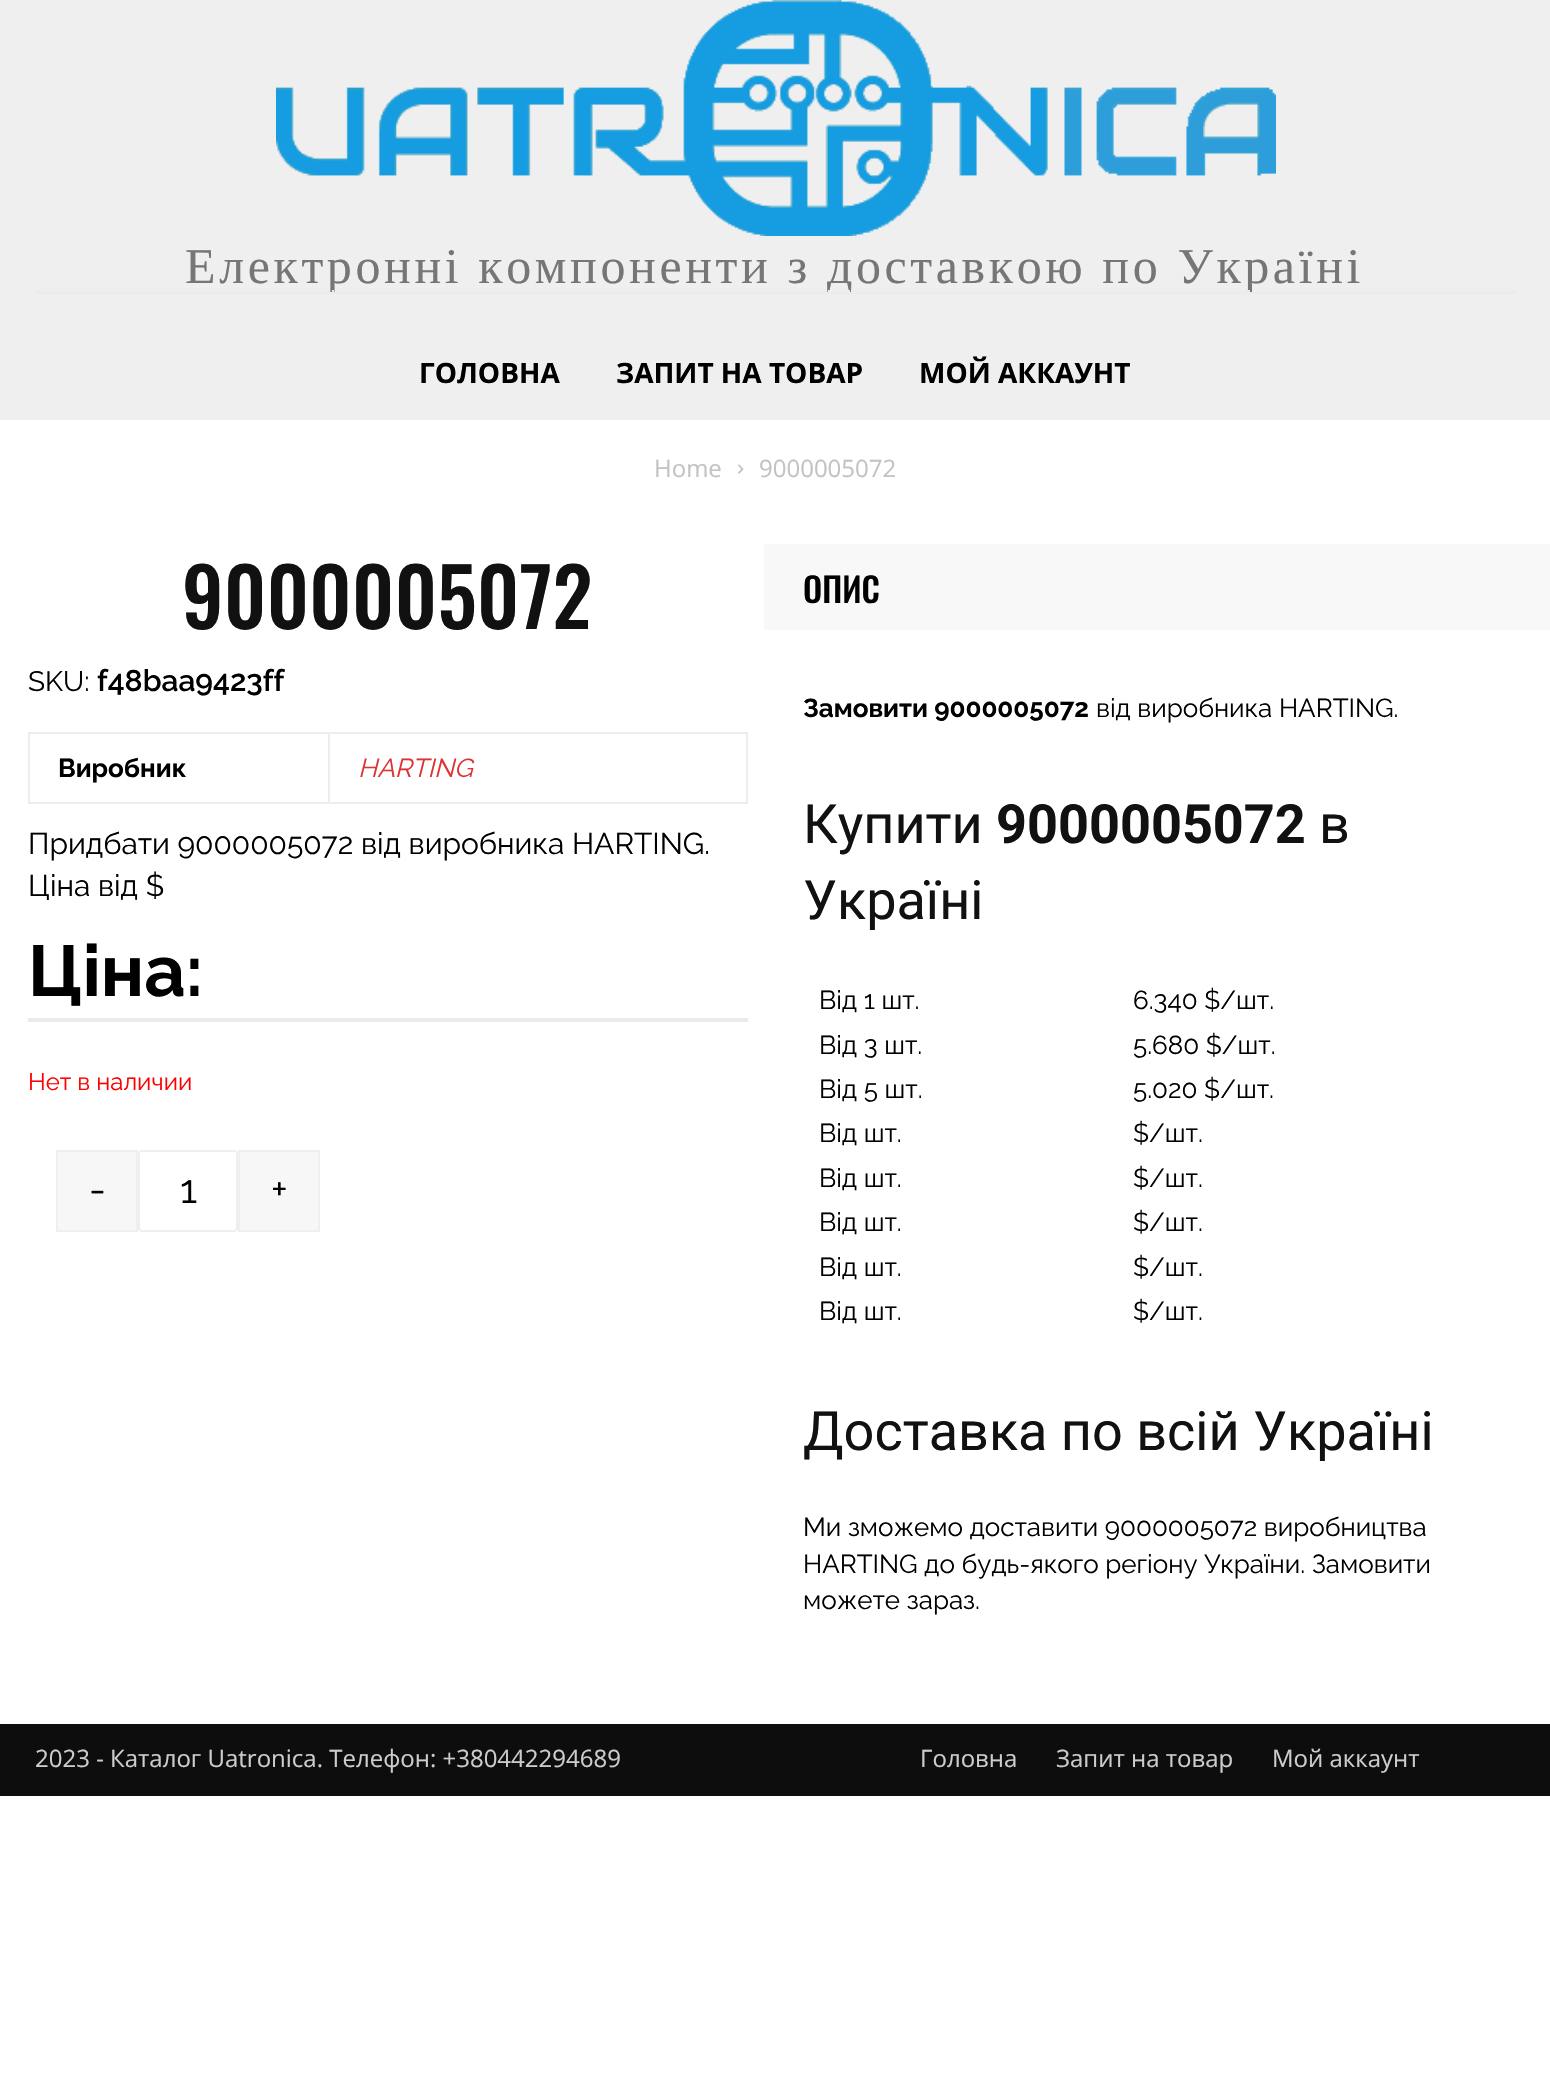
void draw(SkCanvas* canvas) {
	SkPaint fill;
	fill.setAntiAlias(true);
	auto makeFont = [&](const char* family, int weight, float size, bool italic = false) {
		SkFontStyle style(weight, SkFontStyle::kNormal_Width,
			italic ? SkFontStyle::kItalic_Slant : SkFontStyle::kUpright_Slant);
		SkFont result(fontMgr->matchFamilyStyle(family, style), size);
		result.setSubpixel(true);
		return result;
	};
	auto text = [&](const char* s, float x, float y, const SkFont& font) {
		canvas->drawString(s, x, y, font, fill);
	};
	auto spacedText = [&](const char* s, float x, float y, const SkFont& font, const SkPaint& ink, float letter, float word) {
		std::vector<SkGlyphID> glyphs(font.countText(s, strlen(s), SkTextEncoding::kUTF8));
		std::vector<float> xs(glyphs.size());
		font.textToGlyphs(s, strlen(s), SkTextEncoding::kUTF8, glyphs);
		font.getXPos(glyphs, xs, x);
		float extra = 0;
		for (size_t i = 0; i < glyphs.size(); i++) {
			xs[i] += extra;
			extra += letter + word * (glyphs[i] == font.unicharToGlyph(' '));
		}
		canvas->drawTextBlob(SkTextBlob::MakeFromPosHGlyphs(glyphs, xs, y, font), 0, 0, ink);
	};
	auto box = [&](float l, float t, float r, float b) {
		canvas->drawRect(SkRect::MakeLTRB(l, t, r, b), fill);
	};
	auto picture = [&](const char* path, float l, float t, float r, float b) {
		auto image = SkImages::DeferredFromEncodedData(SkData::MakeFromFileName(path));
		canvas->drawImageRect(image, SkRect::MakeLTRB(l, t, r, b), SkSamplingOptions());
	};
	canvas->clear(0xFFFFFFFF);
	fill.setColor(0xFFEFEFEF);
	box(0, 0, 1550, 420);
	picture("image0.png", 276, 0, 1276, 236);
	fill.setColor(0xFFEBEBEB);
	box(1514, 290, 1516, 294);
	picture("image1.png", 738, 464, 744, 474);
	fill.setColor(0xFFEDEDED);
	box(28, 732, 748, 734);
	box(746, 732, 748, 804);
	box(28, 802, 748, 804);
	box(28, 732, 30, 804);
	box(328, 732, 330, 804);
	fill.setColor(0xFFEBEBEB);
	box(28, 1018, 748, 1022);
	fill.setColor(0xFFF7F7F7);
	canvas->drawRect(SkRect::MakeLTRB(57, 1151, 137, 1231), fill);
	fill.setStyle(SkPaint::kStroke_Style);
	fill.setStrokeWidth(2);
	fill.setColor(0xFFEFEFEF);
	canvas->drawRect(SkRect::MakeLTRB(57, 1151, 137, 1231), fill);
	canvas->drawRoundRect(SkRect::MakeLTRB(139, 1151, 237, 1231), 3, 3, fill);
	fill.setStyle(SkPaint::kFill_Style);
	fill.setColor(0xFFF7F7F7);
	canvas->drawRect(SkRect::MakeLTRB(239, 1151, 319, 1231), fill);
	fill.setStyle(SkPaint::kStroke_Style);
	fill.setColor(0xFFEFEFEF);
	canvas->drawRect(SkRect::MakeLTRB(239, 1151, 319, 1231), fill);
	fill.setStyle(SkPaint::kFill_Style);
	fill.setColor(0xFFF8F8F8);
	box(764, 544, 1550, 630);
	fill.setColor(0xFF0D0D0D);
	box(0, 1724, 1550, 1796);
	auto font1 = makeFont("Liberation Serif", 400, 50);
	fill.setColor(0xFF767676);
	spacedText("Електронні компоненти з доставкою по Україні", 185, 283, font1, fill, 3.6f, 0);
	fill.setStyle(SkPaint::kStroke_Style);
	fill.setColor(0xFFEBEBEB);
	fill.setPathEffect(SkDashPathEffect::Make({{2, 2}}, 0));
	canvas->drawPath(SkPathBuilder().moveTo(36, 291).lineTo(1516, 291).detach(), fill);
	fill.setPathEffect(nullptr);
	fill.setStyle(SkPaint::kFill_Style);
	box(36, 292, 1516, 294);
	auto font2 = makeFont("Open Sans", 700, 28);
	fill.setColor(0xFF000000);
	text("ГОЛОВНА", 419, 383, font2);
	text("ЗАПИТ НА ТОВАР", 616, 383, font2);
	text("МОЙ АККАУНТ", 919, 383, font2);
	auto font3 = makeFont("Open Sans", 400, 24);
	fill.setColor(0xFFC3C3C3);
	text("Home", 654, 477, font3);
	text("9000005072", 759, 477, font3);
	auto font4 = makeFont("Oswald", 500, 80);
	fill.setColor(0xFF111111);
	text("9000005072", 182, 629, font4);
	auto font5 = makeFont("Raleway", 400, 28);
	fill.setColor(0xFF000000);
	text("SKU:", 28, 691, font5);
	auto font6 = makeFont("Raleway", 600, 30);
	text("f48baa9423ff", 97, 691, font6);
	auto font7 = makeFont("Raleway", 700, 26);
	text("Виробник", 58, 777, font7);
	auto font8 = makeFont("Raleway", 400, 26, true);
	fill.setColor(0xFFDD3333);
	text("HARTING", 358, 777, font8);
	auto font9 = makeFont("Raleway", 400, 30);
	fill.setColor(0xFF000000);
	text("Придбати 9000005072 від виробника HARTING.", 28, 854, font9);
	text("Ціна від $", 28, 896, font9);
	auto font10 = makeFont("Raleway", 700, 72);
	text("Ціна:", 28, 996, font10);
	auto font11 = makeFont("Raleway", 400, 24);
	fill.setColor(0xFFFF0000);
	text("Нет в наличии", 28, 1090, font11);
	auto font12 = makeFont("Raleway", 400, 40);
	fill.setColor(0xFF000000);
	text("-", 89, 1203, font12);
	text("1", 180, 1203, font12);
	text("+", 271, 1203, font12);
	auto font13 = makeFont("Oswald", 500, 34);
	text("ОПИС", 803, 603, font13);
	text("Замовити 9000005072", 803, 717, font7);
	auto font14 = makeFont("Raleway", 400, 26);
	text("від виробника HARTING.", 1096, 717, font14);
	auto font15 = makeFont("Roboto", 400, 54);
	fill.setColor(0xFF111111);
	text("Купити", 803, 843, font15);
	auto font16 = makeFont("Roboto", 700, 54);
	text("9000005072", 996, 843, font16);
	text("в", 1319, 843, font15);
	text("Україні", 803, 919, font15);
	fill.setColor(0xFF000000);
	text("Від 1 шт.", 819, 1009, font14);
	text("6.340 $/шт.", 1133, 1009, font14);
	text("Від 3 шт.", 819, 1054, font14);
	text("5.680 $/шт.", 1133, 1054, font14);
	text("Від 5 шт.", 819, 1098, font14);
	text("5.020 $/шт.", 1133, 1098, font14);
	text("Від шт.", 819, 1142, font14);
	text("$/шт.", 1133, 1142, font14);
	text("Від шт.", 819, 1187, font14);
	text("$/шт.", 1133, 1187, font14);
	text("Від шт.", 819, 1231, font14);
	text("$/шт.", 1133, 1231, font14);
	text("Від шт.", 819, 1276, font14);
	text("$/шт.", 1133, 1276, font14);
	text("Від шт.", 819, 1320, font14);
	text("$/шт.", 1133, 1320, font14);
	fill.setColor(0xFF111111);
	text("Доставка по всій Україні", 803, 1450, font15);
	fill.setColor(0xFF000000);
	text("Ми зможемо доставити 9000005072 виробництва", 803, 1536, font14);
	text("HARTING до будь-якого регіону України. Замовити", 803, 1573, font14);
	text("можете зараз.", 803, 1609, font14);
	fill.setColor(0xFFCCCCCC);
	text("2023 - Каталог Uatronica. Телефон: +380442294689", 35, 1767, font3);
	text("Головна", 920, 1767, font3);
	text("Запит на товар", 1056, 1767, font3);
	text("Мой аккаунт", 1272, 1767, font3);
}
